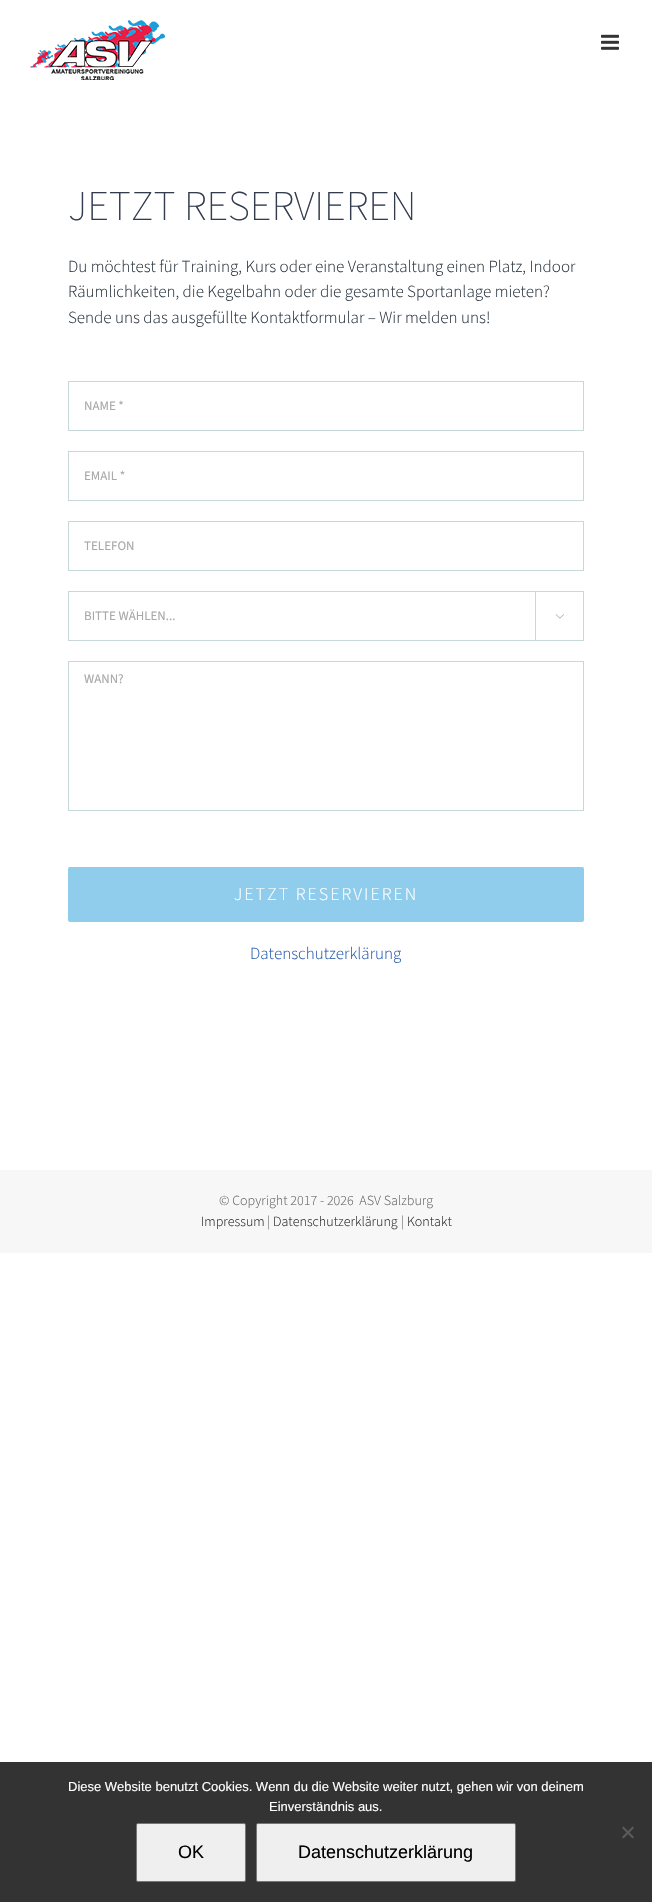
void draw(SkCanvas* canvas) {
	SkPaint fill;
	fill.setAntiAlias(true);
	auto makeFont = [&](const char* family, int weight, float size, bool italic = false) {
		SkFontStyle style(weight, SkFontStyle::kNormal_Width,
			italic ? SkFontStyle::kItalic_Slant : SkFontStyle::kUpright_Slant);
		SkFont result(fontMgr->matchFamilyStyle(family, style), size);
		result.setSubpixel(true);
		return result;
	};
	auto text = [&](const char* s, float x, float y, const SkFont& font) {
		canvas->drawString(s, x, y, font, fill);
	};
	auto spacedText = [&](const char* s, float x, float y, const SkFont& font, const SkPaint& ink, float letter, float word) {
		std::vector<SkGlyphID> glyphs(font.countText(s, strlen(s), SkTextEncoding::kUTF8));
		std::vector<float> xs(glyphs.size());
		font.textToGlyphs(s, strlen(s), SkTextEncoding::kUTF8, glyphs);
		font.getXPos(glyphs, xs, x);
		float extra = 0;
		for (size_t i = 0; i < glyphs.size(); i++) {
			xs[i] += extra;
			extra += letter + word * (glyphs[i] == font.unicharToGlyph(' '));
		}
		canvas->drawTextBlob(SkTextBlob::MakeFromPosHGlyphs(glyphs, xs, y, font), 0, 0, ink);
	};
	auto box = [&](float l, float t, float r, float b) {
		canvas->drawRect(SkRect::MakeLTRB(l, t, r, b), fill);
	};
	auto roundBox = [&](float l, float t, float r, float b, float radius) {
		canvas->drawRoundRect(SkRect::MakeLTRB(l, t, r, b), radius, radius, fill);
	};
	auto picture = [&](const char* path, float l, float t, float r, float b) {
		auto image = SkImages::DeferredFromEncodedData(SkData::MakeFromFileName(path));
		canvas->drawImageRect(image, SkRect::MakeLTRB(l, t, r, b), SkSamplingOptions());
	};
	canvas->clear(0xFFFFFFFF);
	picture("image0.png", 30, 20, 165, 80);
	picture("image1.png", 601, 34, 619, 50);
	fill.setStyle(SkPaint::kStroke_Style);
	fill.setStrokeWidth(1);
	fill.setColor(0xFFC8D7D9);
	canvas->drawRect(SkRect::MakeLTRB(68.5f, 381.5f, 583.5f, 430.5f), fill);
	canvas->drawRect(SkRect::MakeLTRB(68.5f, 451.5f, 583.5f, 500.5f), fill);
	canvas->drawRect(SkRect::MakeLTRB(68.5f, 521.5f, 583.5f, 570.5f), fill);
	canvas->drawRect(SkRect::MakeLTRB(68.5f, 591.5f, 583.5f, 640.5f), fill);
	fill.setStyle(SkPaint::kFill_Style);
	box(535, 592, 536, 640);
	picture("image2.png", 555, 614, 564, 619);
	fill.setStyle(SkPaint::kStroke_Style);
	canvas->drawRect(SkRect::MakeLTRB(68.5f, 661.5f, 583.5f, 810.5f), fill);
	fill.setStyle(SkPaint::kFill_Style);
	fill.setColor(0xFF90CDEC);
	roundBox(68, 867, 584, 922, 2);
	fill.setColor(0xFFF7F7F7);
	box(0, 1170, 652, 1253);
	fill.setColor(0xFF333333);
	box(0, 1762, 652, 1902);
	fill.setColor(0xFF5A5A5A);
	canvas->drawPath(SkPathBuilder().moveTo(632.5f, 1826.5f).lineTo(634, 1828).lineTo(623.5f, 1838.5f).lineTo(622, 1837).close().detach(), fill);
	canvas->drawPath(SkPathBuilder().moveTo(622, 1828).lineTo(623.5f, 1826.5f).lineTo(634, 1837).lineTo(632.5f, 1838.5f).close().detach(), fill);
	fill.setColor(0xFFEFEFEF);
	canvas->drawRoundRect(SkRect::MakeLTRB(136.5f, 1823.5f, 245.5f, 1881.5f), 1.5f, 1.5f, fill);
	fill.setStyle(SkPaint::kStroke_Style);
	fill.setColor(0xFF767676);
	canvas->drawRoundRect(SkRect::MakeLTRB(136.5f, 1823.5f, 245.5f, 1881.5f), 1.5f, 1.5f, fill);
	fill.setStyle(SkPaint::kFill_Style);
	fill.setColor(0xFFEFEFEF);
	canvas->drawRoundRect(SkRect::MakeLTRB(256.5f, 1823.5f, 515.5f, 1881.5f), 1.5f, 1.5f, fill);
	fill.setStyle(SkPaint::kStroke_Style);
	fill.setColor(0xFF767676);
	canvas->drawRoundRect(SkRect::MakeLTRB(256.5f, 1823.5f, 515.5f, 1881.5f), 1.5f, 1.5f, fill);
	auto font1 = makeFont("Source Sans 3", 200, 42.25f);
	fill.setStyle(SkPaint::kFill_Style);
	fill.setColor(0xFF333C4E);
	text("JETZT RESERVIEREN", 68, 220, font1);
	auto font2 = makeFont("Source Sans 3", 300, 17);
	fill.setColor(0xFF2D3842);
	text("Du möchtest für Training, Kurs oder eine Veranstaltung einen Platz, Indoor", 68, 272, font2);
	text("Räumlichkeiten, die Kegelbahn oder die gesamte Sportanlage mieten?", 68, 297, font2);
	text("Sende uns das ausgefüllte Kontaktformular – Wir melden uns!", 68, 323, font2);
	auto font3 = makeFont("Source Sans 3", 400, 13);
	fill.setColor(0xFFAAA9A9);
	text("NAME *", 84, 410, font3);
	text("EMAIL *", 84, 480, font3);
	text("TELEFON", 84, 550, font3);
	text("BITTE WÄHLEN...", 84, 620, font3);
	text("WANN?", 84, 683, font3);
	auto font4 = makeFont("Source Sans 3", 300, 18);
	fill.setColor(0xFFFFFFFF);
	spacedText("JETZT RESERVIEREN", 234, 900, font4, fill, 2, 0);
	fill.setColor(0xFF2A5DB0);
	text("Datenschutzerklärung", 250, 959, font2);
	auto font5 = makeFont("Source Sans 3", 300, 14);
	fill.setColor(0xFF666666);
	text("© Copyright 2017 - 2026  ASV Salzburg", 219, 1205, font5);
	fill.setColor(0xFF2B2B2B);
	text("Impressum", 201, 1226, font5);
	fill.setColor(0xFF666666);
	text("|", 267, 1226, font5);
	fill.setColor(0xFF2B2B2B);
	text("Datenschutzerklärung", 273, 1226, font5);
	fill.setColor(0xFF666666);
	text("|", 401, 1226, font5);
	fill.setColor(0xFF2B2B2B);
	text("Kontakt", 407, 1226, font5);
	auto font6 = makeFont("Liberation Sans", 400, 13);
	fill.setColor(0xFFFFFFFF);
	text("Diese Website benutzt Cookies. Wenn du die Website weiter nutzt, gehen wir von deinem", 68, 1791, font6);
	text("Einverständnis aus.", 269, 1811, font6);
	auto font7 = makeFont("Liberation Sans", 400, 18);
	fill.setColor(0xFF000000);
	text("OK", 178, 1858, font7);
	text("Datenschutzerklärung", 298, 1858, font7);
}
